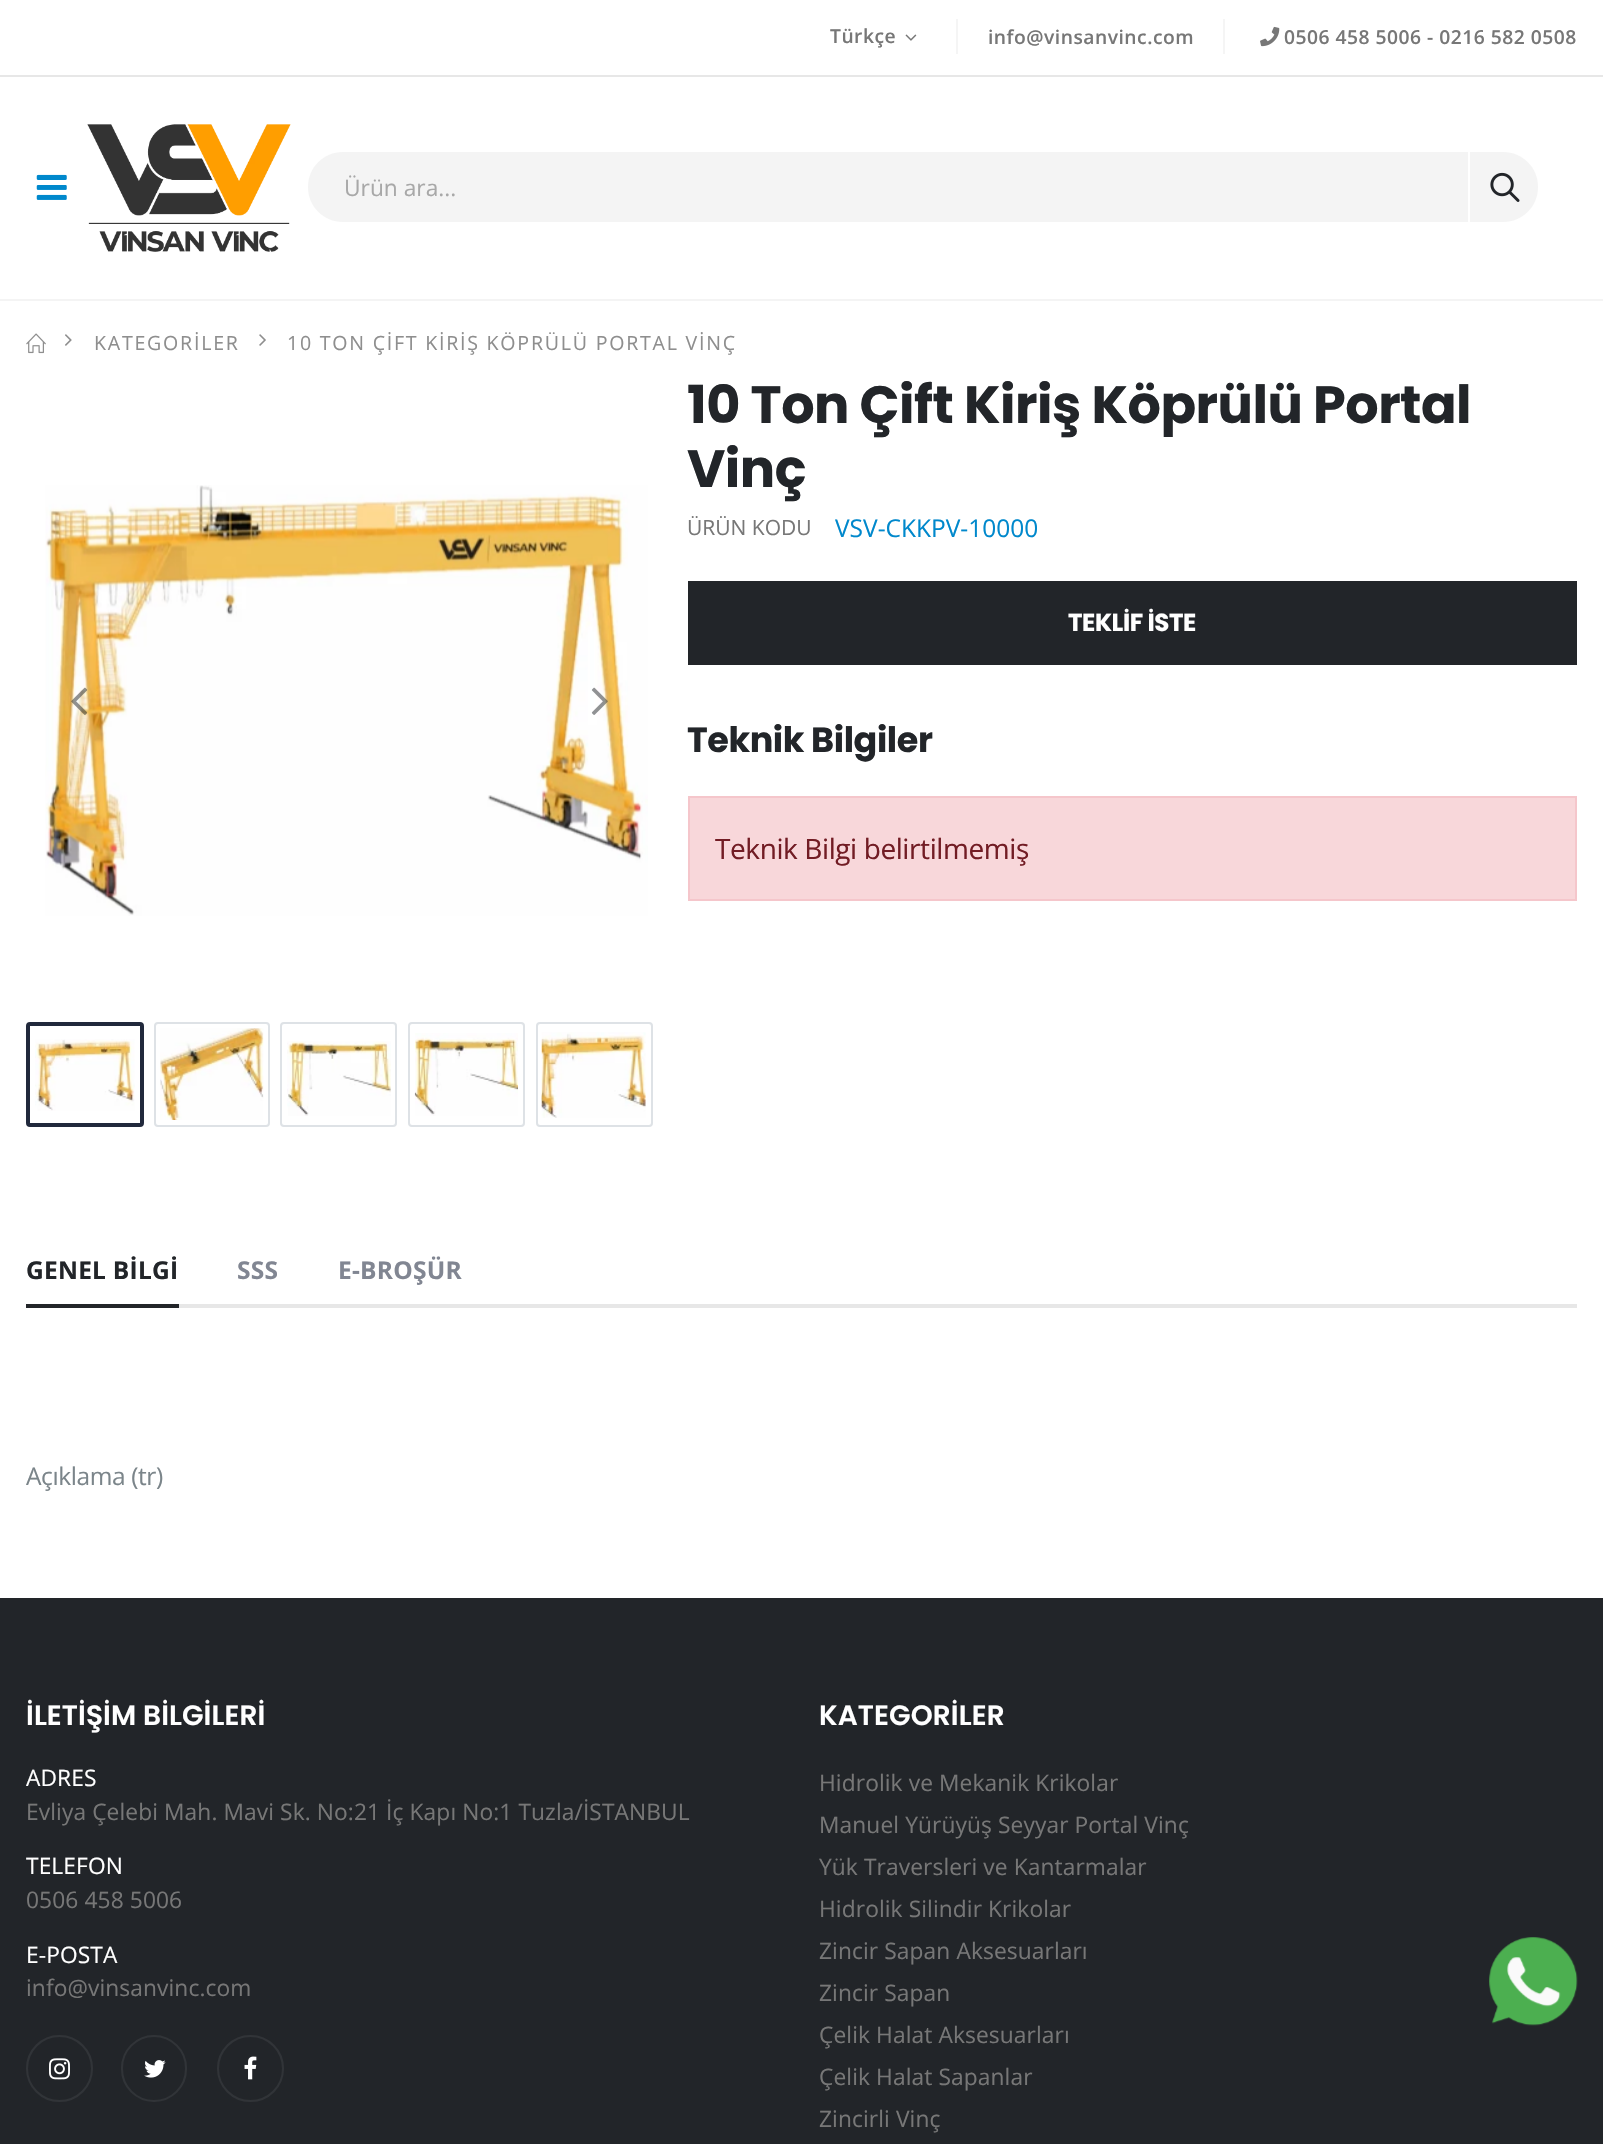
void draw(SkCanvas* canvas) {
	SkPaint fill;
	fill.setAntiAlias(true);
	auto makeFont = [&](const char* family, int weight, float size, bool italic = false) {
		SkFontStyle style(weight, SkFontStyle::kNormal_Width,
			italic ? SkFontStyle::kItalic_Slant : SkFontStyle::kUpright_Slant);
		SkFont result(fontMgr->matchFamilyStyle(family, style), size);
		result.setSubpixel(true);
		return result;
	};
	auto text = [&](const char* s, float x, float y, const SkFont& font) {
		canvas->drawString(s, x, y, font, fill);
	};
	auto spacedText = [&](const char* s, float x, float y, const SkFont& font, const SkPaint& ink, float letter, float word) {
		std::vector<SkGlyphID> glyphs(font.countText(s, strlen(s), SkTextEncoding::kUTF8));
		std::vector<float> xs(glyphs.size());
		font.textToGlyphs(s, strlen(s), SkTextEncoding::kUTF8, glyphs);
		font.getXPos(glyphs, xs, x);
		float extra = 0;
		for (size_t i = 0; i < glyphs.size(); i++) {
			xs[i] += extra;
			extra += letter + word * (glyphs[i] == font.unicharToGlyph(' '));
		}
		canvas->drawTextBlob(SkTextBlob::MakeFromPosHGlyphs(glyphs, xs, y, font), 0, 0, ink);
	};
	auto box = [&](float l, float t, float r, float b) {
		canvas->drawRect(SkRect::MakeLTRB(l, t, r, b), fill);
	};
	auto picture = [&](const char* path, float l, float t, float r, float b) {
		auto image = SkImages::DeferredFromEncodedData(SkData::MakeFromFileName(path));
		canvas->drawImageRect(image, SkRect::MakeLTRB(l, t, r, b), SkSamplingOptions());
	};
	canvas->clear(0xFFFFFFFF);
	fill.setColor(0xFFF4F4F4);
	box(0, 299, 1603, 301);
	fill.setColor(0xFFE7E7E7);
	box(0, 75, 1603, 77);
	picture("image0.png", 905, 34, 917, 41);
	fill.setColor(0xFFF5F5F5);
	box(956, 19, 958, 54);
	box(1223, 19, 1225, 54);
	picture("image1.png", 1260, 26, 1280, 47);
	picture("image2.png", 36, 174, 67, 200);
	picture("image3.png", 87, 124, 291, 252);
	fill.setColor(0xFFF4F4F4);
	canvas->drawPath(SkPathBuilder().moveTo(343, 152).lineTo(1468, 152).lineTo(1468, 222).lineTo(343, 222).cubicTo(323.5f, 222, 308, 206.5f, 308, 187).cubicTo(308, 167.5f, 323.5f, 152, 343, 152).close().detach(), fill);
	canvas->drawPath(SkPathBuilder().moveTo(1468, 152).lineTo(1503, 152).cubicTo(1522.5f, 152, 1538, 167.5f, 1538, 187).cubicTo(1538, 206.5f, 1522.5f, 222, 1503, 222).lineTo(1468, 222).close().detach(), fill);
	fill.setColor(0xFFFFFFFF);
	box(1468, 152, 1470, 222);
	picture("image4.png", 1490, 172, 1520, 202);
	picture("image5.png", 26, 333, 46, 354);
	picture("image6.png", 65, 334, 72, 346);
	picture("image7.png", 259, 334, 266, 346);
	picture("image8.png", 45, 485, 648, 916);
	picture("image9.png", 71, 687, 88, 715);
	picture("image10.png", 591, 687, 608, 715);
	fill.setStyle(SkPaint::kStroke_Style);
	fill.setStrokeWidth(4);
	fill.setColor(0xFF21293C);
	canvas->drawRoundRect(SkRect::MakeLTRB(28, 1024, 142, 1125), 2, 2, fill);
	picture("image11.png", 35, 1039, 135, 1111);
	fill.setStrokeWidth(2);
	fill.setColor(0xFFDEE2E6);
	canvas->drawRoundRect(SkRect::MakeLTRB(155, 1023, 269, 1126), 3, 3, fill);
	picture("image12.png", 160, 1028, 264, 1120);
	canvas->drawRoundRect(SkRect::MakeLTRB(281, 1023, 396, 1126), 3, 3, fill);
	picture("image13.png", 287, 1041, 391, 1116);
	canvas->drawRoundRect(SkRect::MakeLTRB(409, 1023, 524, 1126), 3, 3, fill);
	picture("image14.png", 414, 1033, 518, 1116);
	canvas->drawRoundRect(SkRect::MakeLTRB(537, 1023, 652, 1126), 3, 3, fill);
	picture("image15.png", 541, 1032, 646, 1118);
	fill.setStyle(SkPaint::kFill_Style);
	fill.setColor(0xFF222529);
	box(688, 581, 1577, 665);
	fill.setColor(0xFFF8D7DA);
	canvas->drawRect(SkRect::MakeLTRB(689, 797, 1576, 900), fill);
	fill.setStyle(SkPaint::kStroke_Style);
	fill.setColor(0xFFF5C6CB);
	canvas->drawRect(SkRect::MakeLTRB(689, 797, 1576, 900), fill);
	fill.setStyle(SkPaint::kFill_Style);
	fill.setColor(0xFFE7E7E7);
	box(179, 1304, 1577, 1308);
	fill.setColor(0xFF222529);
	box(26, 1304, 179, 1308);
	box(0, 1598, 1603, 2144);
	fill.setStyle(SkPaint::kStroke_Style);
	fill.setColor(0xFF313438);
	canvas->drawCircle(59.5f, 2068.5f, 32.5f, fill);
	picture("image16.png", 49, 2058, 70, 2080);
	canvas->drawRoundRect(SkRect::MakeLTRB(122, 2036, 186, 2101), 32, 32, fill);
	picture("image17.png", 144, 2060, 166, 2078);
	canvas->drawCircle(250.5f, 2068.5f, 32.5f, fill);
	picture("image18.png", 244, 2056, 257, 2080);
	picture("image19.png", 1489, 1937, 1578, 2026);
	auto font1 = makeFont("Open Sans", 600, 19.25f);
	fill.setStyle(SkPaint::kFill_Style);
	fill.setColor(0xFF777777);
	spacedText("Türkçe", 830, 43, font1, fill, 0.5f, 0);
	spacedText("info@vinsanvinc.com", 988, 44, font1, fill, 0.5f, 0);
	spacedText("0506 458 5006 - 0216 582 0508", 1284, 44, font1, fill, 0.5f, 0);
	auto font2 = makeFont("Open Sans", 400, 22.75f);
	fill.setColor(0xFFA8A8A8);
	text("Ürün ara...", 344, 196, font2);
	auto font3 = makeFont("Open Sans", 400, 19.6f);
	fill.setColor(0xFF8E8E8E);
	spacedText("KATEGORİLER", 94, 350, font3, fill, 1.75f, 0);
	spacedText("10 TON ÇİFT KİRİŞ KÖPRÜLÜ PORTAL VİNÇ", 287, 350, font3, fill, 1.75f, 0);
	auto font4 = makeFont("Poppins", 700, 52.5f);
	fill.setColor(0xFF222529);
	spacedText("10 Ton Çift Kiriş Köprülü Portal", 687, 423, font4, fill, -0.5f, 0);
	spacedText("Vinç", 687, 487, font4, fill, -0.5f, 0);
	auto font5 = makeFont("Open Sans", 400, 21);
	fill.setColor(0xFF777777);
	text("ÜRÜN KODU", 687, 535, font5);
	auto font6 = makeFont("Open Sans", 400, 24.5f);
	fill.setColor(0xFF0088CC);
	text("VSV-CKKPV-10000", 835, 537, font6);
	auto font7 = makeFont("Poppins", 700, 24.5f);
	fill.setColor(0xFFFFFFFF);
	spacedText("TEKLİF İSTE", 1068, 631, font7, fill, -0.4f, 0);
	auto font8 = makeFont("Poppins", 700, 35);
	fill.setColor(0xFF222529);
	spacedText("Teknik Bilgiler", 687, 752, font8, fill, -0.4f, 0);
	auto font9 = makeFont("Open Sans", 400, 28);
	fill.setColor(0xFF721C24);
	spacedText("Teknik Bilgi belirtilmemiş", 715, 859, font9, fill, -0.4f, 0);
	auto font10 = makeFont("Open Sans", 700, 24.5f);
	fill.setColor(0xFF222529);
	spacedText("GENEL BİLGİ", 26, 1279, font10, fill, 0.25f, 0);
	fill.setColor(0xFF818692);
	spacedText("SSS", 237, 1279, font10, fill, 0.25f, 0);
	spacedText("E-BROŞÜR", 338, 1279, font10, fill, 0.25f, 0);
	fill.setColor(0xFF7B858A);
	spacedText("Açıklama (tr)", 26, 1485, font6, fill, -0.4f, 0);
	auto font11 = makeFont("Poppins", 600, 28);
	fill.setColor(0xFFFFFFFF);
	spacedText("İLETİŞİM BİLGİLERİ", 26, 1725, font11, fill, 0.1f, 0);
	spacedText("ADRES", 26, 1786, font2, fill, 0.1f, 0);
	fill.setColor(0xFF777777);
	spacedText("Evliya Çelebi Mah. Mavi Sk. No:21 İç Kapı No:1 Tuzla/İSTANBUL", 26, 1820, font2, fill, 0.1f, 0);
	fill.setColor(0xFFFFFFFF);
	spacedText("TELEFON", 26, 1874, font2, fill, 0.1f, 0);
	fill.setColor(0xFF777777);
	spacedText("0506 458 5006", 26, 1908, font2, fill, 0.1f, 0);
	fill.setColor(0xFFFFFFFF);
	spacedText("E-POSTA", 26, 1963, font2, fill, 0.1f, 0);
	fill.setColor(0xFF777777);
	spacedText("info@vinsanvinc.com", 26, 1996, font2, fill, 0.1f, 0);
	fill.setColor(0xFFFFFFFF);
	spacedText("KATEGORİLER", 819, 1725, font11, fill, 0.1f, 0);
	fill.setColor(0xFF777777);
	spacedText("Hidrolik ve Mekanik Krikolar", 819, 1791, font2, fill, 0.1f, 0);
	spacedText("Manuel Yürüyüş Seyyar Portal Vinç", 819, 1833, font2, fill, 0.1f, 0);
	spacedText("Yük Traversleri ve Kantarmalar", 819, 1875, font2, fill, 0.1f, 0);
	spacedText("Hidrolik Silindir Krikolar", 819, 1917, font2, fill, 0.1f, 0);
	spacedText("Zincir Sapan Aksesuarları", 819, 1959, font2, fill, 0.1f, 0);
	spacedText("Zincir Sapan", 819, 2001, font2, fill, 0.1f, 0);
	spacedText("Çelik Halat Aksesuarları", 819, 2043, font2, fill, 0.1f, 0);
	spacedText("Çelik Halat Sapanlar", 819, 2085, font2, fill, 0.1f, 0);
	spacedText("Zincirli Vinç", 819, 2127, font2, fill, 0.1f, 0);
}
